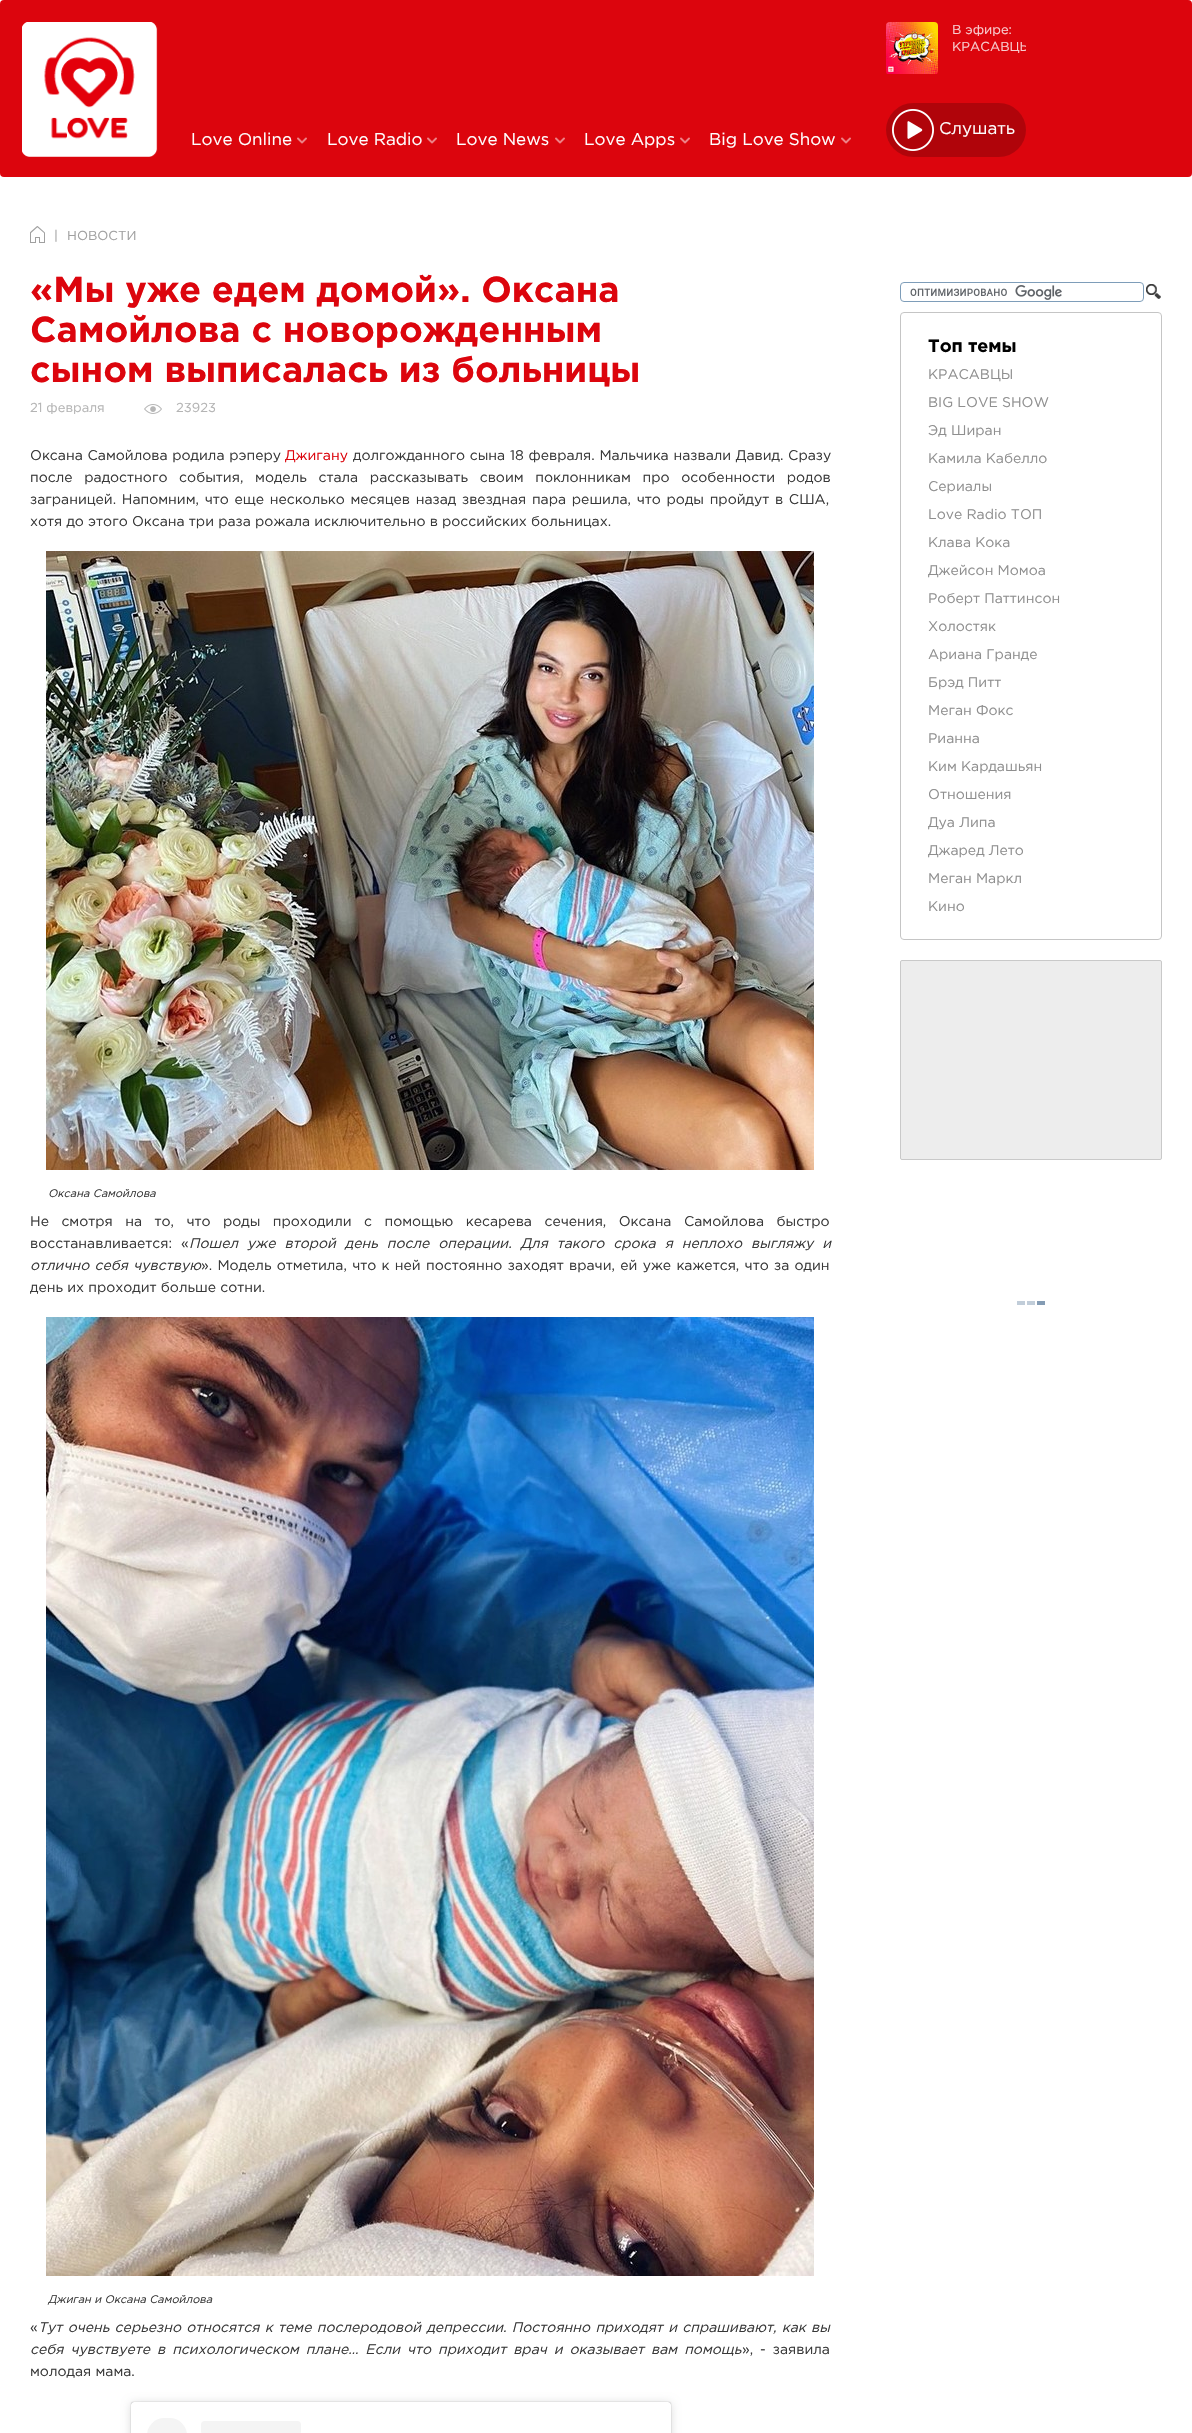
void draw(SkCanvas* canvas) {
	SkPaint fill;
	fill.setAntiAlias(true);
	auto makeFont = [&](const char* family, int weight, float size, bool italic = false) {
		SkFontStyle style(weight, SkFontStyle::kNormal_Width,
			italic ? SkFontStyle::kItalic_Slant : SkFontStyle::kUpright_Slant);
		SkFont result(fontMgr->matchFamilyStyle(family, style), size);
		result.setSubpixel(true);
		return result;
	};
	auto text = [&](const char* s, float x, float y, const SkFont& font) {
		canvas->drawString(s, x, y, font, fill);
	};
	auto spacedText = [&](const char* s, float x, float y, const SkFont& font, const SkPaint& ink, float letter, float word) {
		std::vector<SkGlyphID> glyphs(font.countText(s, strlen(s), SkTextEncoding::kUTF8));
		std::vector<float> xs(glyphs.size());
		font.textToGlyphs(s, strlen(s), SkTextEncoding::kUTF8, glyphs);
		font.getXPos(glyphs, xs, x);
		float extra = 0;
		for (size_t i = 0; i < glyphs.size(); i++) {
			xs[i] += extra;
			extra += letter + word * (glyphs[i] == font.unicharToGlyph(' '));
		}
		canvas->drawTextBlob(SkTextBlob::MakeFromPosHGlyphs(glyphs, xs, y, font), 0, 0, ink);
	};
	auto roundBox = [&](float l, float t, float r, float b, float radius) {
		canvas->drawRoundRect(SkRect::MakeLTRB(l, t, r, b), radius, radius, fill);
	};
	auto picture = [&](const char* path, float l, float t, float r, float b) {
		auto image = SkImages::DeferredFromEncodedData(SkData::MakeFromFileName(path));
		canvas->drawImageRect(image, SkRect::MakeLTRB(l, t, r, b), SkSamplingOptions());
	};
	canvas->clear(0xFFFFFFFF);
	fill.setColor(0xFFDC050D);
	roundBox(0, 0, 1192, 177, 4);
	picture("image0.png", 22, 22, 158, 157);
	picture("image1.png", 886, 22, 938, 74);
	fill.setColor(0xFFB0040A);
	roundBox(886, 103, 1026, 157, 27);
	picture("image2.png", 892, 109, 934, 151);
	picture("image3.png", 297, 137, 307, 144);
	picture("image3.png", 427, 137, 437, 144);
	picture("image3.png", 555, 137, 565, 144);
	picture("image3.png", 680, 137, 690, 144);
	picture("image3.png", 841, 137, 851, 144);
	picture("image4.png", 30, 226, 45, 243);
	picture("image5.png", 144, 404, 162, 414);
	picture("image6.png", 46, 551, 814, 1170);
	picture("image7.png", 46, 1317, 814, 2276);
	fill.setColor(0x26000000);
	fill.setMaskFilter(SkMaskFilter::MakeBlur(kNormal_SkBlurStyle, 5));
	canvas->drawRoundRect(SkRect::MakeLTRB(131, 2403, 671, 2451), 3, 3, fill);
	fill.setMaskFilter(nullptr);
	fill.setColor(0x80000000);
	fill.setMaskFilter(SkMaskFilter::MakeBlur(kNormal_SkBlurStyle, 0.5f));
	canvas->drawRoundRect(SkRect::MakeLTRB(131, 2402, 671, 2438), 3, 3, fill);
	fill.setMaskFilter(nullptr);
	fill.setColor(0xFFFFFFFF);
	roundBox(131, 2402, 671, 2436, 3);
	fill.setColor(0xFFF4F4F4);
	roundBox(147, 2418, 187, 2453, 20);
	roundBox(201, 2421, 301, 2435, 4);
	picture("image8.png", 910, 285, 1062, 300);
	fill.setStyle(SkPaint::kStroke_Style);
	fill.setStrokeWidth(1);
	fill.setColor(0xFF7E9DB9);
	canvas->drawRoundRect(SkRect::MakeLTRB(900.5f, 282.5f, 1143.5f, 301.5f), 3.5f, 3.5f, fill);
	picture("image9.png", 1146, 284, 1161, 299);
	fill.setColor(0xFFC5C5C5);
	canvas->drawRoundRect(SkRect::MakeLTRB(900.5f, 312.5f, 1161.5f, 939.5f), 3.5f, 3.5f, fill);
	fill.setStyle(SkPaint::kFill_Style);
	fill.setColor(0xFFEDEDED);
	canvas->drawRoundRect(SkRect::MakeLTRB(900.5f, 960.5f, 1161.5f, 1159.5f), 1.5f, 1.5f, fill);
	fill.setStyle(SkPaint::kStroke_Style);
	fill.setColor(0xFFC9C9C9);
	canvas->drawRoundRect(SkRect::MakeLTRB(900.5f, 960.5f, 1161.5f, 1159.5f), 1.5f, 1.5f, fill);
	picture("image10.png", 1017, 1301, 1045, 1305);
	auto font1 = makeFont("Gotham", 400, 13);
	fill.setStyle(SkPaint::kFill_Style);
	fill.setColor(0xFFF8CDCF);
	text("В эфире:", 952, 34, font1);
	canvas->save();
	canvas->clipRect(SkRect::MakeLTRB(952, 22, 1026, 56));
	text("КРАСАВЦЫ", 952, 51, font1);
	canvas->restore();
	auto font2 = makeFont("Gotham", 400, 17);
	fill.setColor(0xFFFFFFFF);
	text("Слушать", 939, 134, font2);
	text("Love Online", 191, 145, font2);
	text("Love Radio", 327, 145, font2);
	text("Love News", 456, 145, font2);
	text("Love Apps", 584, 145, font2);
	text("Big Love Show", 709, 145, font2);
	fill.setColor(0xFFA0A0A0);
	text("|", 54, 240, font1);
	text("НОВОСТИ", 67, 240, font1);
	auto font3 = makeFont("Gotham", 700, 36);
	fill.setColor(0xFFDC050D);
	text("«Мы уже едем домой». Оксана", 30, 302, font3);
	text("Самойлова с новорожденным", 30, 342, font3);
	text("сыном выписалась из больницы", 30, 382, font3);
	fill.setColor(0xFFB4B4B4);
	text("21 февраля", 30, 412, font1);
	text("23923", 176, 412, font1);
	auto font4 = makeFont("Gotham", 400, 14);
	fill.setColor(0xFF393939);
	spacedText("Оксана Самойлова родила рэперу", 30, 460, font4, fill, 0, 0.5f);
	fill.setColor(0xFFDC050D);
	text("Джигану", 285, 460, font4);
	fill.setColor(0xFF393939);
	spacedText("долгожданного сына 18 февраля. Мальчика назвали Давид. Сразу", 353, 460, font4, fill, 0, 0.5f);
	spacedText("после радостного события, модель стала рассказывать своим поклонникам про особенности родов", 30, 482, font4, fill, 0, 7.5f);
	spacedText("заграницей. Напомним, что еще несколько месяцев назад звездная пара решила, что роды пройдут в США,", 30, 504, font4, fill, 0, 1.5f);
	text("хотя до этого Оксана три раза рожала исключительно в российских больницах.", 30, 526, font4);
	auto font5 = makeFont("Gotham", 400, 11, true);
	text("Оксана Самойлова", 48, 1197, font5);
	spacedText("Не смотря на то, что роды проходили с помощью кесарева сечения, Оксана Самойлова быстро", 30, 1226, font4, fill, 0, 8.25f);
	spacedText("восстанавливается: «", 30, 1248, font4, fill, 0, 4.75f);
	auto font6 = makeFont("Gotham", 400, 14, true);
	spacedText("Пошел уже второй день после операции. Для такого срока я неплохо выгляжу и", 189, 1248, font6, fill, 0, 4.75f);
	spacedText("отлично себя чувствую", 30, 1270, font6, fill, 0, 1);
	spacedText("». Модель отметила, что к ней постоянно заходят врачи, ей уже кажется, что за один", 201, 1270, font4, fill, 0, 1.1f);
	text("день их проходит больше сотни.", 30, 1292, font4);
	text("Джиган и Оксана Самойлова", 48, 2303, font5);
	text("«", 30, 2332, font4);
	spacedText("Тут очень серьезно относятся к теме послеродовой депрессии. Постоянно приходят и спрашивают, как вы", 38, 2332, font6, fill, 0, 1.1f);
	spacedText("себя чувствуете в психологическом плане… Если что приходит врач и оказывает вам помощь", 30, 2354, font6, fill, 0, 2.75f);
	spacedText("», - заявила", 742, 2354, font4, fill, 0, 2.75f);
	text("молодая мама.", 30, 2376, font4);
	auto font7 = makeFont("Gotham", 700, 18);
	fill.setColor(0xFF010101);
	text("Топ темы", 928, 352, font7);
	fill.setColor(0xFF8F8F8F);
	text("КРАСАВЦЫ", 928, 379, font4);
	text("BIG LOVE SHOW", 928, 407, font4);
	text("Эд Ширан", 928, 435, font4);
	text("Камила Кабелло", 928, 463, font4);
	text("Сериалы", 928, 491, font4);
	text("Love Radio ТОП", 928, 519, font4);
	text("Клава Кока", 928, 547, font4);
	text("Джейсон Момоа", 928, 575, font4);
	text("Роберт Паттинсон", 928, 603, font4);
	text("Холостяк", 928, 631, font4);
	text("Ариана Гранде", 928, 659, font4);
	text("Брэд Питт", 928, 687, font4);
	text("Меган Фокс", 928, 715, font4);
	text("Рианна", 928, 743, font4);
	text("Ким Кардашьян", 928, 771, font4);
	text("Отношения", 928, 799, font4);
	text("Дуа Липа", 928, 827, font4);
	text("Джаред Лето", 928, 855, font4);
	text("Меган Маркл", 928, 883, font4);
	text("Кино", 928, 911, font4);
}
